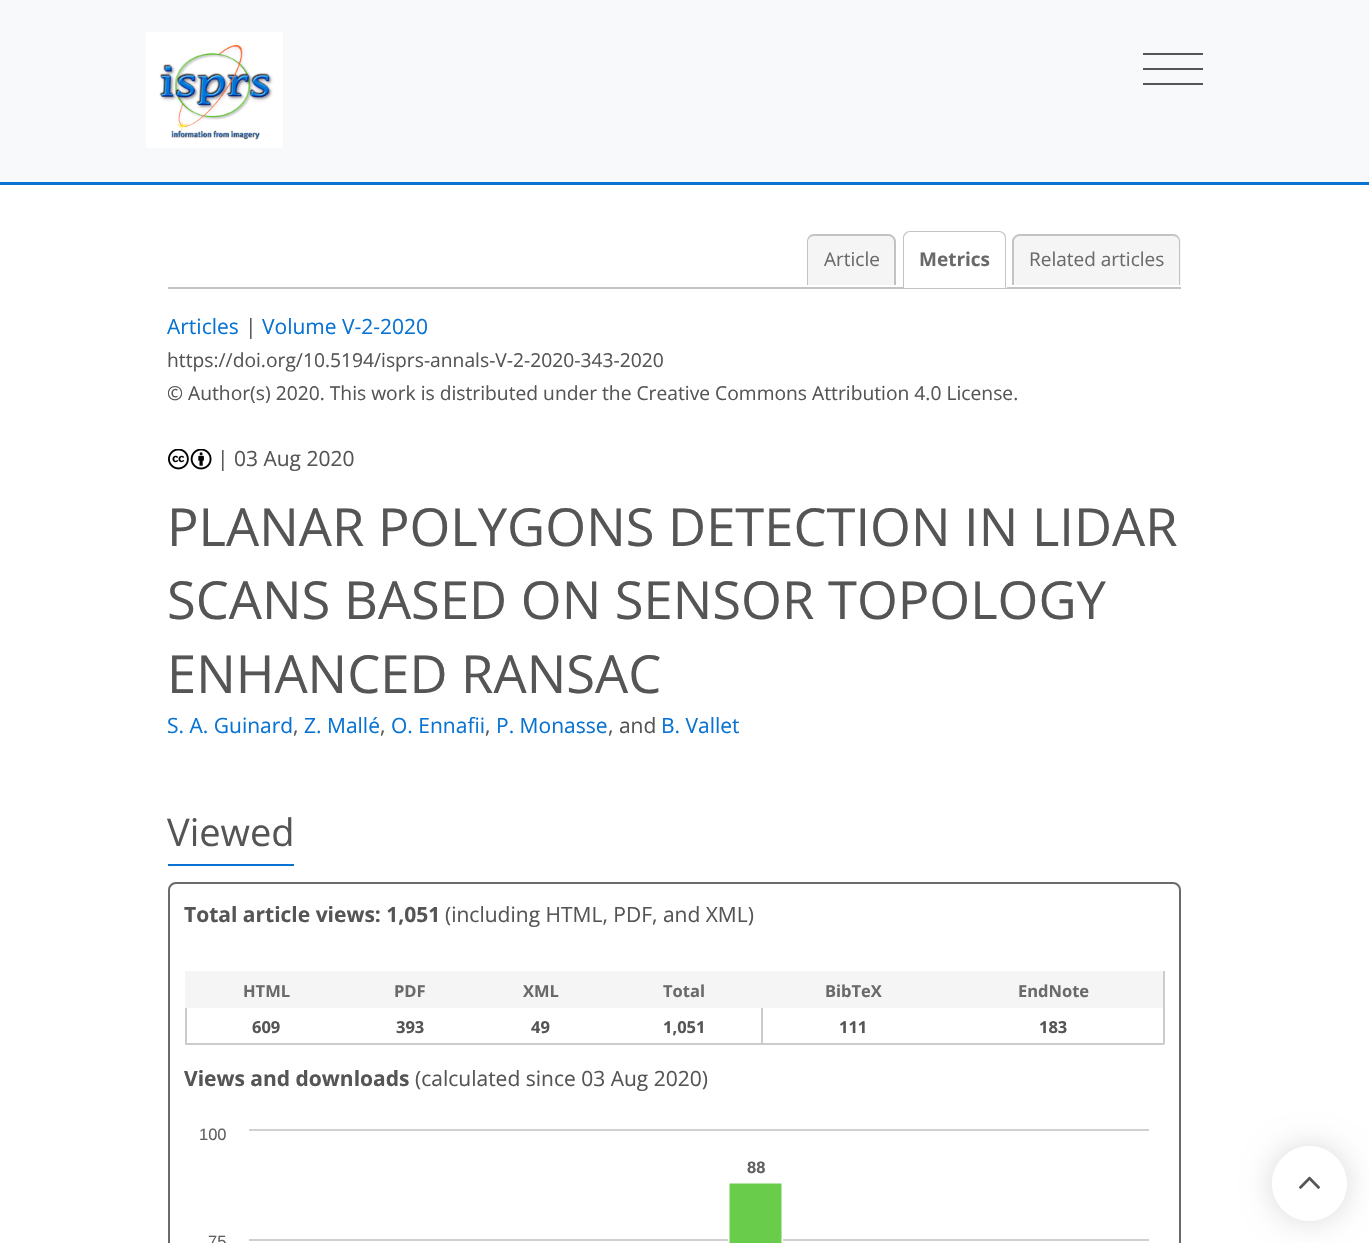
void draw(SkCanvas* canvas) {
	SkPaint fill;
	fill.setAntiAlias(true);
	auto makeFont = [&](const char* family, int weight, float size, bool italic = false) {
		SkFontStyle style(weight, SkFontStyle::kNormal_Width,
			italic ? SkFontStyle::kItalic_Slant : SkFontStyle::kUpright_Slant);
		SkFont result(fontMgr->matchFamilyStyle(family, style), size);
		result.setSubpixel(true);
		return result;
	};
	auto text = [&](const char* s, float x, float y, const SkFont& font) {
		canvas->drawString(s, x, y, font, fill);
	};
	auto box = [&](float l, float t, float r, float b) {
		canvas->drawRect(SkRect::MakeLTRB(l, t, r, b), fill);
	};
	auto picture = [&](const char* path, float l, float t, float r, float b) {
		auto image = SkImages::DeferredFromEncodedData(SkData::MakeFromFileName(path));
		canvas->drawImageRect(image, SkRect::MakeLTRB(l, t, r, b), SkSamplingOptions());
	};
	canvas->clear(0xFFFFFFFF);
	fill.setColor(0xFFF8F9FA);
	box(0, 0, 1369, 182);
	fill.setColor(0xFF0873D3);
	box(0, 182, 1369, 185);
	picture("image0.png", 146, 32, 283, 148);
	fill.setColor(0xFF555555);
	box(1143, 53, 1203, 55);
	box(1143, 68, 1203, 70);
	box(1143, 83, 1203, 85);
	fill.setColor(0xFFC3C3C3);
	box(168, 287, 1181, 289);
	fill.setColor(0xFFF5F5F5);
	canvas->drawPath(SkPathBuilder().moveTo(815, 234).lineTo(888, 234).cubicTo(892.5f, 234, 896, 237.5f, 896, 242).lineTo(896, 285).lineTo(807, 285).lineTo(807, 242).cubicTo(807, 237.5f, 810.5f, 234, 815, 234).close().detach(), fill);
	fill.setColor(0xFFC3C3C3);
	canvas->drawPath(SkPathBuilder(SkPathFillType::kEvenOdd).moveTo(814, 234).lineTo(888, 234).cubicTo(892, 234, 896, 237, 896, 242).lineTo(896, 285).lineTo(807, 285).lineTo(807, 242).cubicTo(807, 237, 810, 234, 814, 234).close().moveTo(814, 236).lineTo(888, 236).cubicTo(891, 236, 894, 238, 894, 242).lineTo(894, 285).lineTo(808, 285).lineTo(808, 242).cubicTo(808, 238, 811, 236, 814, 236).close().detach(), fill);
	fill.setColor(0xFFFFFFFF);
	canvas->drawPath(SkPathBuilder().moveTo(911, 231).lineTo(999, 231).cubicTo(1003.5f, 231, 1007, 234.5f, 1007, 239).lineTo(1007, 288).lineTo(903, 288).lineTo(903, 239).cubicTo(903, 234.5f, 906.5f, 231, 911, 231).close().detach(), fill);
	fill.setColor(0xFFC3C3C3);
	canvas->drawPath(SkPathBuilder(SkPathFillType::kEvenOdd).moveTo(910, 231).lineTo(999, 231).cubicTo(1003, 231, 1006, 234, 1006, 238).lineTo(1006, 288).lineTo(903, 288).lineTo(903, 238).cubicTo(903, 234, 906, 231, 910, 231).close().moveTo(910, 232).lineTo(999, 232).cubicTo(1002, 232, 1005, 235, 1005, 238).lineTo(1005, 288).lineTo(904, 288).lineTo(904, 238).cubicTo(904, 235, 907, 232, 910, 232).close().detach(), fill);
	fill.setColor(0xFFF5F5F5);
	canvas->drawPath(SkPathBuilder().moveTo(1021, 234).lineTo(1173, 234).cubicTo(1177.5f, 234, 1181, 237.5f, 1181, 242).lineTo(1181, 285).lineTo(1013, 285).lineTo(1013, 242).cubicTo(1013, 237.5f, 1016.5f, 234, 1021, 234).close().detach(), fill);
	fill.setColor(0xFFC3C3C3);
	canvas->drawPath(SkPathBuilder(SkPathFillType::kEvenOdd).moveTo(1020, 234).lineTo(1173, 234).cubicTo(1177, 234, 1180, 237, 1180, 242).lineTo(1180, 285).lineTo(1012, 285).lineTo(1012, 242).cubicTo(1012, 237, 1016, 234, 1020, 234).close().moveTo(1020, 236).lineTo(1173, 236).cubicTo(1176, 236, 1179, 238, 1179, 242).lineTo(1179, 285).lineTo(1014, 285).lineTo(1014, 242).cubicTo(1014, 238, 1017, 236, 1020, 236).close().detach(), fill);
	picture("image1.png", 168, 449, 212, 470);
	fill.setColor(0xFF0873D3);
	box(168, 864, 294, 866);
	fill.setStyle(SkPaint::kStroke_Style);
	fill.setStrokeWidth(2);
	fill.setColor(0xFF6A6A6A);
	canvas->drawRoundRect(SkRect::MakeLTRB(169, 883, 1180, 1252), 7, 7, fill);
	fill.setStyle(SkPaint::kFill_Style);
	fill.setColor(0xFFCCCCCC);
	box(1163, 971, 1165, 1044);
	box(185, 1043, 1164, 1045);
	box(185, 1008, 187, 1044);
	box(761, 1007, 763, 1044);
	fill.setColor(0xFFF5F5F5);
	box(185, 971, 1163, 1008);
	picture("image2.png", 249, 1129, 1149, 1243);
	canvas->save();
	canvas->clipPath(SkPathBuilder(SkPathFillType::kEvenOdd).moveTo(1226, 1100).lineTo(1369, 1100).lineTo(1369, 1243).lineTo(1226, 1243).close().moveTo(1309.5f, 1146).cubicTo(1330, 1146, 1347, 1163, 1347, 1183.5f).cubicTo(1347, 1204, 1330, 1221, 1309.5f, 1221).cubicTo(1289, 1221, 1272, 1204, 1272, 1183.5f).cubicTo(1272, 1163, 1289, 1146, 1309.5f, 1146).close().detach(), true);
	fill.setColor(0x26000000);
	fill.setMaskFilter(SkMaskFilter::MakeBlur(kNormal_SkBlurStyle, 15));
	canvas->drawRoundRect(SkRect::MakeLTRB(1272, 1146, 1347, 1221), 37.5f, 37.5f, fill);
	fill.setMaskFilter(nullptr);
	canvas->restore();
	fill.setColor(0xB3FFFFFF);
	canvas->drawCircle(1309.5f, 1183.5f, 37.5f, fill);
	picture("image3.png", 1299, 1176, 1320, 1189);
	auto font1 = makeFont("Open Sans", 400, 19);
	fill.setColor(0xFF6A6A6A);
	text("Article", 824, 266, font1);
	auto font2 = makeFont("Open Sans", 700, 19);
	text("Metrics", 919, 266, font2);
	text("Related articles", 1029, 266, font1);
	auto font3 = makeFont("Open Sans", 400, 21);
	fill.setColor(0xFF0873D3);
	text("Articles", 167, 334, font3);
	fill.setColor(0xFF555555);
	text("|", 245, 334, font3);
	fill.setColor(0xFF0873D3);
	text("Volume V-2-2020", 262, 334, font3);
	auto font4 = makeFont("Open Sans", 400, 19.25f);
	fill.setColor(0xFF555555);
	text("https://doi.org/10.5194/isprs-annals-V-2-2020-343-2020", 167, 367, font4);
	text("© Author(s) 2020. This work is distributed under", 167, 400, font4);
	text("the Creative Commons Attribution 4.0 License.", 602, 400, font4);
	text("| 03 Aug 2020", 217, 466, font3);
	auto font5 = makeFont("Open Sans", 400, 52.5f);
	text("PLANAR POLYGONS DETECTION IN LIDAR", 167, 546, font5);
	text("SCANS BASED ON SENSOR TOPOLOGY", 167, 619, font5);
	text("ENHANCED RANSAC", 167, 693, font5);
	fill.setColor(0xFF0873D3);
	text("S. A. Guinard", 167, 733, font3);
	fill.setColor(0xFF555555);
	text(",", 293, 733, font3);
	fill.setColor(0xFF0873D3);
	text("Z. Mallé", 304, 733, font3);
	fill.setColor(0xFF555555);
	text(",", 380, 733, font3);
	fill.setColor(0xFF0873D3);
	text("O. Ennafii", 391, 733, font3);
	fill.setColor(0xFF555555);
	text(",", 485, 733, font3);
	fill.setColor(0xFF0873D3);
	text("P. Monasse", 496, 733, font3);
	fill.setColor(0xFF555555);
	text(", and", 608, 733, font3);
	fill.setColor(0xFF0873D3);
	text("B. Vallet", 661, 733, font3);
	auto font6 = makeFont("Open Sans", 400, 38);
	fill.setColor(0xFF555555);
	text("Viewed", 167, 846, font6);
	auto font7 = makeFont("Open Sans", 700, 21);
	text("Total article views: 1,051", 184, 922, font7);
	text("(including HTML, PDF, and XML)", 445, 922, font3);
	auto font8 = makeFont("Open Sans", 700, 16.5f);
	fill.setColor(0xFF6A6A6A);
	text("HTML", 243, 997, font8);
	text("PDF", 394, 997, font8);
	text("XML", 523, 997, font8);
	text("Total", 663, 997, font8);
	text("BibTeX", 825, 997, font8);
	text("EndNote", 1018, 997, font8);
	fill.setColor(0xFF555555);
	text("609", 252, 1033, font8);
	text("393", 396, 1033, font8);
	text("49", 531, 1033, font8);
	text("1,051", 663, 1033, font8);
	text("111", 839, 1033, font8);
	text("183", 1039, 1033, font8);
	text("Views and downloads", 184, 1086, font7);
	text("(calculated since 03 Aug 2020)", 415, 1086, font3);
	auto font9 = makeFont("Liberation Sans", 400, 16.5f);
	fill.setColor(0xFF606060);
	text("100", 199, 1140, font9);
	auto font10 = makeFont("Liberation Sans", 700, 16.5f);
	text("88", 747, 1173, font10);
	text("75", 208, 1247, font9);
}
